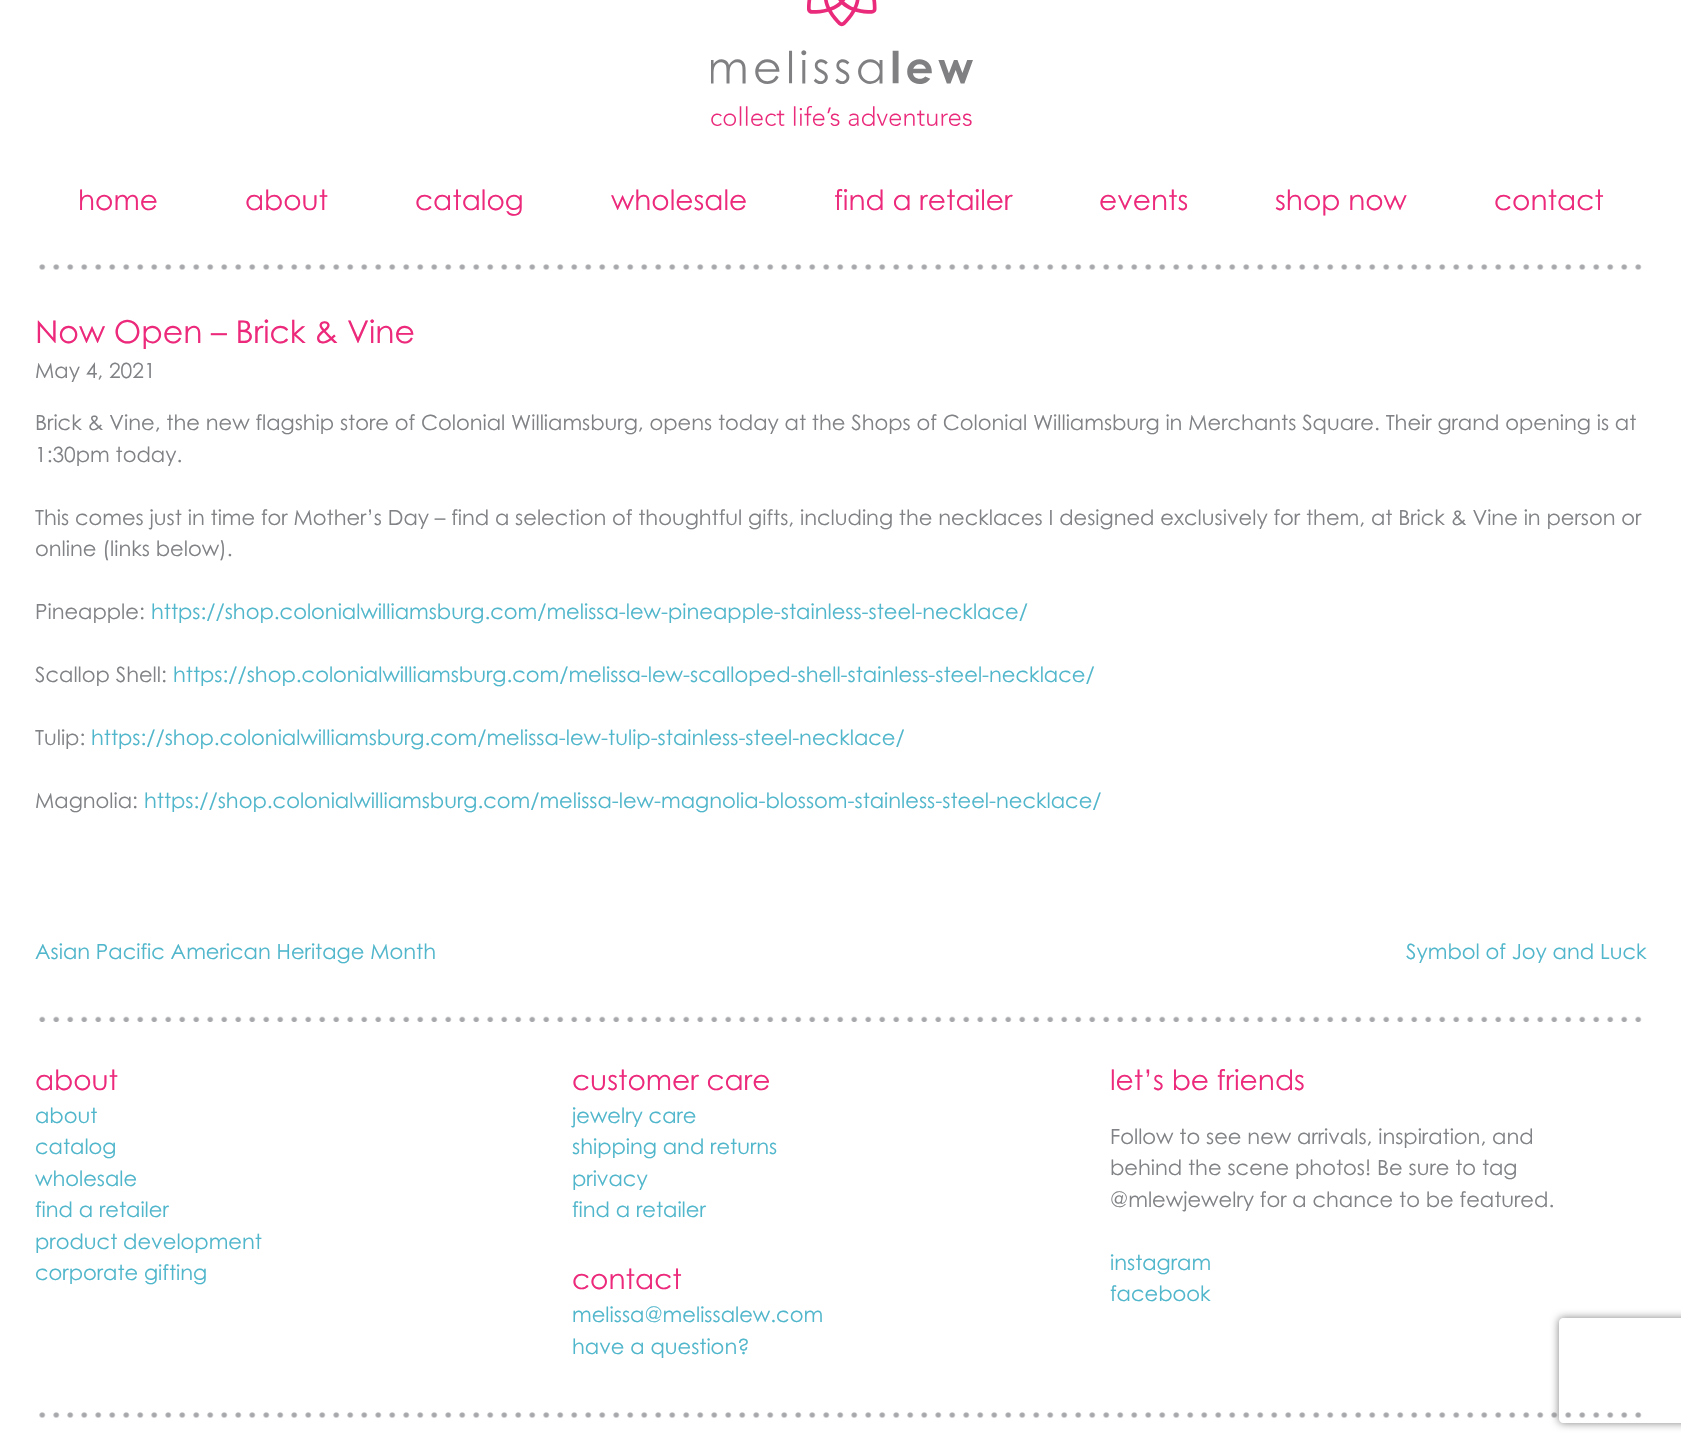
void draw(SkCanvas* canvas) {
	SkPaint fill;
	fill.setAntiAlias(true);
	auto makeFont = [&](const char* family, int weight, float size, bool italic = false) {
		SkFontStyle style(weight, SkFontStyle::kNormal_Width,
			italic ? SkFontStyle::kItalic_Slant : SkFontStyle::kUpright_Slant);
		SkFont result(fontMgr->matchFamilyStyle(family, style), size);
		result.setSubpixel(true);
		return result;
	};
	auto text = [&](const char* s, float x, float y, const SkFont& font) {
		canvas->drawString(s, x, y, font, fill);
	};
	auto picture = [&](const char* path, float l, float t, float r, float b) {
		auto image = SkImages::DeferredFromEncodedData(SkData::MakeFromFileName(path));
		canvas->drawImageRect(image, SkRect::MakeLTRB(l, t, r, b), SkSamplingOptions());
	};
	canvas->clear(0xFFFFFFFF);
	picture("image0.png", 711, 0, 973, 126);
	picture("image1.png", 39, 264, 1642, 270);
	picture("image2.png", 39, 1016, 1642, 1022);
	picture("image1.png", 39, 1412, 1642, 1418);
	canvas->save();
	canvas->clipPath(SkPathBuilder(SkPathFillType::kEvenOdd).moveTo(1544, 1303).lineTo(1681, 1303).lineTo(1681, 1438).lineTo(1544, 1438).close().moveTo(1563, 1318).lineTo(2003, 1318).cubicTo(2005, 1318, 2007, 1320, 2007, 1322).lineTo(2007, 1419).cubicTo(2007, 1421, 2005, 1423, 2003, 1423).lineTo(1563, 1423).cubicTo(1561, 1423, 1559, 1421, 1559, 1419).lineTo(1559, 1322).cubicTo(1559, 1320, 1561, 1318, 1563, 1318).close().detach(), true);
	fill.setColor(0xFF808080);
	fill.setMaskFilter(SkMaskFilter::MakeBlur(kNormal_SkBlurStyle, 4.5f));
	canvas->drawRoundRect(SkRect::MakeLTRB(1559, 1318, 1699, 1423), 4, 4, fill);
	fill.setMaskFilter(nullptr);
	canvas->restore();
	auto font1 = makeFont("Century Gothic", 400, 28);
	fill.setColor(0xFFEC297B);
	text("home", 78, 210, font1);
	text("about", 245, 210, font1);
	text("catalog", 415, 210, font1);
	text("wholesale", 611, 210, font1);
	text("find a retailer", 834, 210, font1);
	text("events", 1099, 210, font1);
	text("shop now", 1275, 210, font1);
	text("contact", 1494, 210, font1);
	auto font2 = makeFont("Century Gothic", 400, 31.5f);
	text("Now Open – Brick & Vine", 35, 343, font2);
	auto font3 = makeFont("Century Gothic", 400, 21);
	fill.setColor(0xFF808285);
	text("May 4, 2021", 35, 378, font3);
	text("Brick & Vine, the new flagship store of Colonial Williamsburg, opens today at the Shops of Colonial Williamsburg in Merchants Square. Their grand opening is at", 35, 430, font3);
	text("1:30pm today.", 35, 462, font3);
	text("This comes just in time for Mother’s Day – find a selection of thoughtful gifts, including the necklaces I designed exclusively for them, at Brick & Vine in person or", 35, 525, font3);
	text("online (links below).", 35, 556, font3);
	text("Pineapple:", 35, 619, font3);
	fill.setColor(0xFF50B6CB);
	text("https://shop.colonialwilliamsburg.com/melissa-lew-pineapple-stainless-steel-necklace/", 151, 619, font3);
	fill.setColor(0xFF808285);
	text("Scallop Shell:", 35, 682, font3);
	fill.setColor(0xFF50B6CB);
	text("https://shop.colonialwilliamsburg.com/melissa-lew-scalloped-shell-stainless-steel-necklace/", 173, 682, font3);
	fill.setColor(0xFF808285);
	text("Tulip:", 35, 745, font3);
	fill.setColor(0xFF50B6CB);
	text("https://shop.colonialwilliamsburg.com/melissa-lew-tulip-stainless-steel-necklace/", 91, 745, font3);
	fill.setColor(0xFF808285);
	text("Magnolia:", 35, 808, font3);
	fill.setColor(0xFF50B6CB);
	text("https://shop.colonialwilliamsburg.com/melissa-lew-magnolia-blossom-stainless-steel-necklace/", 144, 808, font3);
	text("Asian Pacific American Heritage Month", 35, 959, font3);
	text("Symbol of Joy and Luck", 1406, 959, font3);
	fill.setColor(0xFFEC297B);
	text("about", 35, 1090, font1);
	fill.setColor(0xFF50B6CB);
	text("about", 35, 1123, font3);
	text("catalog", 35, 1154, font3);
	text("wholesale", 35, 1186, font3);
	text("find a retailer", 35, 1217, font3);
	text("product development", 35, 1249, font3);
	text("corporate gifting", 35, 1280, font3);
	fill.setColor(0xFFEC297B);
	text("customer care", 572, 1090, font1);
	fill.setColor(0xFF50B6CB);
	text("jewelry care", 572, 1123, font3);
	text("shipping and returns", 572, 1154, font3);
	text("privacy", 572, 1186, font3);
	text("find a retailer", 572, 1217, font3);
	fill.setColor(0xFFEC297B);
	text("contact", 572, 1289, font1);
	fill.setColor(0xFF50B6CB);
	text("melissa@melissalew.com", 572, 1322, font3);
	text("have a question?", 572, 1354, font3);
	fill.setColor(0xFFEC297B);
	text("let’s be friends", 1110, 1090, font1);
	fill.setColor(0xFF808285);
	text("Follow to see new arrivals, inspiration, and", 1110, 1144, font3);
	text("behind the scene photos! Be sure to tag", 1110, 1175, font3);
	text("@mlewjewelry for a chance to be featured.", 1110, 1207, font3);
	fill.setColor(0xFF50B6CB);
	text("instagram", 1110, 1270, font3);
	text("facebook", 1110, 1301, font3);
}
